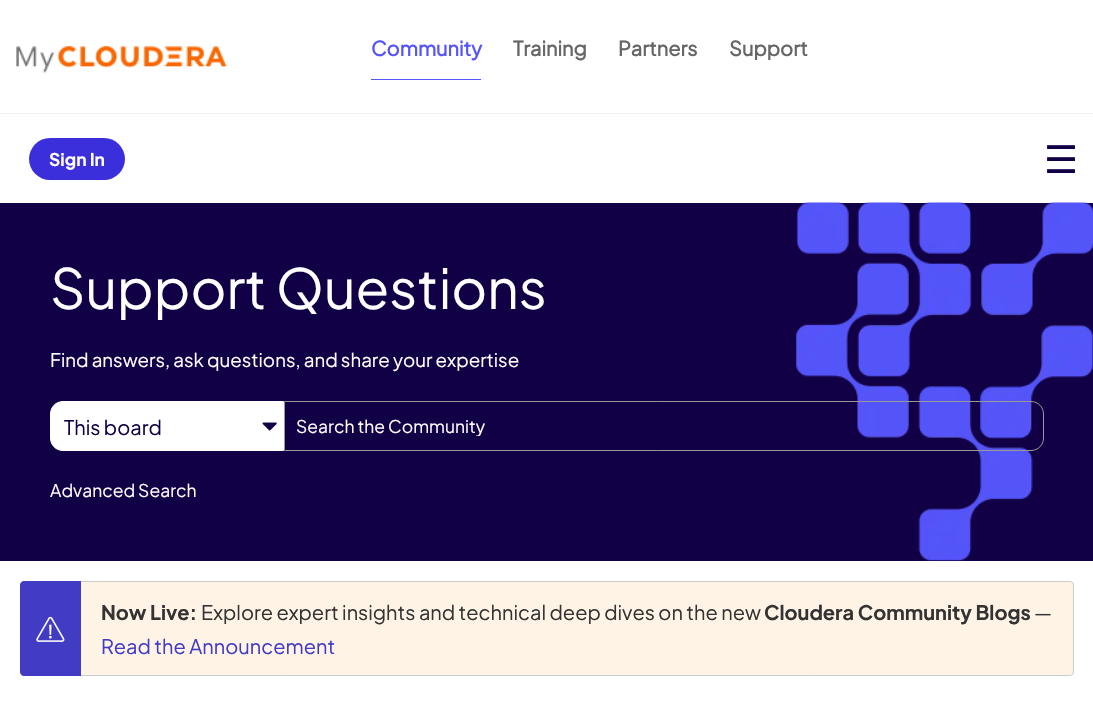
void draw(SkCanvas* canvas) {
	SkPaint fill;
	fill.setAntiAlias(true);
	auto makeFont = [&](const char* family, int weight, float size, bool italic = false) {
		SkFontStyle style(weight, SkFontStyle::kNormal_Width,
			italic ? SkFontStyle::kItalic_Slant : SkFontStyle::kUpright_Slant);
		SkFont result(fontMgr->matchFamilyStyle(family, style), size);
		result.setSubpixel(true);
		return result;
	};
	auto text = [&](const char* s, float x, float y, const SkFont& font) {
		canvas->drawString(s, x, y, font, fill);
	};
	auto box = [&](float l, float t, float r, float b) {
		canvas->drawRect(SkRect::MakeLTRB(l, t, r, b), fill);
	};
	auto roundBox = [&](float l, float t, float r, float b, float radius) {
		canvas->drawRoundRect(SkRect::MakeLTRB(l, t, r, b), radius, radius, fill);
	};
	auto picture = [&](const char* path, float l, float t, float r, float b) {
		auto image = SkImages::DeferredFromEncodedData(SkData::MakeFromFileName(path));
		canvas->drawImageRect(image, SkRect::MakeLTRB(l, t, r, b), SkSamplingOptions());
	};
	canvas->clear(0xFFFFFFFF);
	fill.setColor(0xFFF2F2F2);
	box(0, 113, 1093, 114);
	picture("image0.png", 16, 46, 227, 73);
	fill.setColor(0xFF5555F9);
	box(371, 79, 481, 80);
	fill.setColor(0xFF3B2EDB);
	roundBox(29, 138, 125, 180, 21);
	fill.setColor(0xFF120046);
	box(0, 203, 1093, 561);
	picture("image1.png", 796, 202, 1093, 562);
	fill.setColor(0xFFFFFFFF);
	canvas->drawPath(SkPathBuilder().moveTo(63, 401.5f).lineTo(283.5f, 401.5f).lineTo(283.5f, 450.5f).lineTo(63, 450.5f).cubicTo(56, 450.5f, 50.5f, 445, 50.5f, 438).lineTo(50.5f, 414).cubicTo(50.5f, 407, 56, 401.5f, 63, 401.5f).close().detach(), fill);
	fill.setStyle(SkPaint::kStroke_Style);
	fill.setStrokeWidth(1);
	canvas->drawPath(SkPathBuilder().moveTo(63, 401.5f).lineTo(283.5f, 401.5f).lineTo(283.5f, 450.5f).lineTo(63, 450.5f).cubicTo(56, 450.5f, 50.5f, 445, 50.5f, 438).lineTo(50.5f, 414).cubicTo(50.5f, 407, 56, 401.5f, 63, 401.5f).close().detach(), fill);
	picture("image2.png", 262, 422, 277, 431);
	fill.setColor(0xFF999999);
	canvas->drawPath(SkPathBuilder().moveTo(284.5f, 401.5f).lineTo(1031, 401.5f).cubicTo(1038, 401.5f, 1043.5f, 407, 1043.5f, 414).lineTo(1043.5f, 438).cubicTo(1043.5f, 445, 1038, 450.5f, 1031, 450.5f).lineTo(284.5f, 450.5f).close().detach(), fill);
	fill.setStyle(SkPaint::kFill_Style);
	fill.setColor(0xFFFFF3E6);
	canvas->drawRoundRect(SkRect::MakeLTRB(20.5f, 581.5f, 1073.5f, 675.5f), 3.5f, 3.5f, fill);
	fill.setStyle(SkPaint::kStroke_Style);
	fill.setColor(0xFFCCCCCC);
	canvas->drawRoundRect(SkRect::MakeLTRB(20.5f, 581.5f, 1073.5f, 675.5f), 3.5f, 3.5f, fill);
	fill.setStyle(SkPaint::kFill_Style);
	fill.setColor(0xFF413CC3);
	canvas->drawPath(SkPathBuilder().moveTo(24, 581).lineTo(81, 581).lineTo(81, 676).lineTo(24, 676).cubicTo(22, 676, 20, 674, 20, 672).lineTo(20, 585).cubicTo(20, 583, 22, 581, 24, 581).close().detach(), fill);
	picture("image3.png", 36, 616, 65, 642);
	auto font1 = makeFont("Plus Jakarta Sans", 700, 20);
	fill.setColor(0xFF5555F9);
	text("Community", 371, 56, font1);
	fill.setColor(0xFF666666);
	text("Training", 513, 56, font1);
	text("Partners", 618, 56, font1);
	text("Support", 729, 56, font1);
	auto font2 = makeFont("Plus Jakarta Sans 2", 700, 17.5f);
	fill.setColor(0xFFFFFFFF);
	text("Sign In", 49, 166, font2);
	auto font3 = makeFont("DejaVu Sans", 400, 38);
	fill.setColor(0xFF120046);
	text("☰", 1044, 173, font3);
	auto font4 = makeFont("Plus Jakarta Sans", 400, 55);
	fill.setColor(0xFFFFFFFF);
	text("Support Questions", 50, 309, font4);
	auto font5 = makeFont("Plus Jakarta Sans", 400, 18.75f);
	text("Find answers, ask questions, and share your expertise", 50, 367, font5);
	auto font6 = makeFont("Plus Jakarta Sans", 400, 20);
	fill.setColor(0xFF120046);
	text("This board", 64, 435, font6);
	canvas->save();
	canvas->clipRect(SkRect::MakeLTRB(296, 414, 971, 436));
	auto font7 = makeFont("Plus Jakarta Sans", 400, 17.5f);
	fill.setColor(0xFFFFFFFF);
	text("Search the Community", 296, 433, font7);
	canvas->restore();
	text("Advanced Search", 50, 497, font7);
	auto font8 = makeFont("Plus Jakarta Sans 2", 700, 20);
	fill.setColor(0xFF333333);
	text("Now Live:", 101, 620, font8);
	text("Explore expert insights and technical deep dives on the new", 201, 620, font6);
	text("Cloudera Community Blogs", 764, 620, font8);
	text("—", 1034, 620, font6);
	fill.setColor(0xFF413CC3);
	text("Read the Announcement", 101, 654, font6);
}
